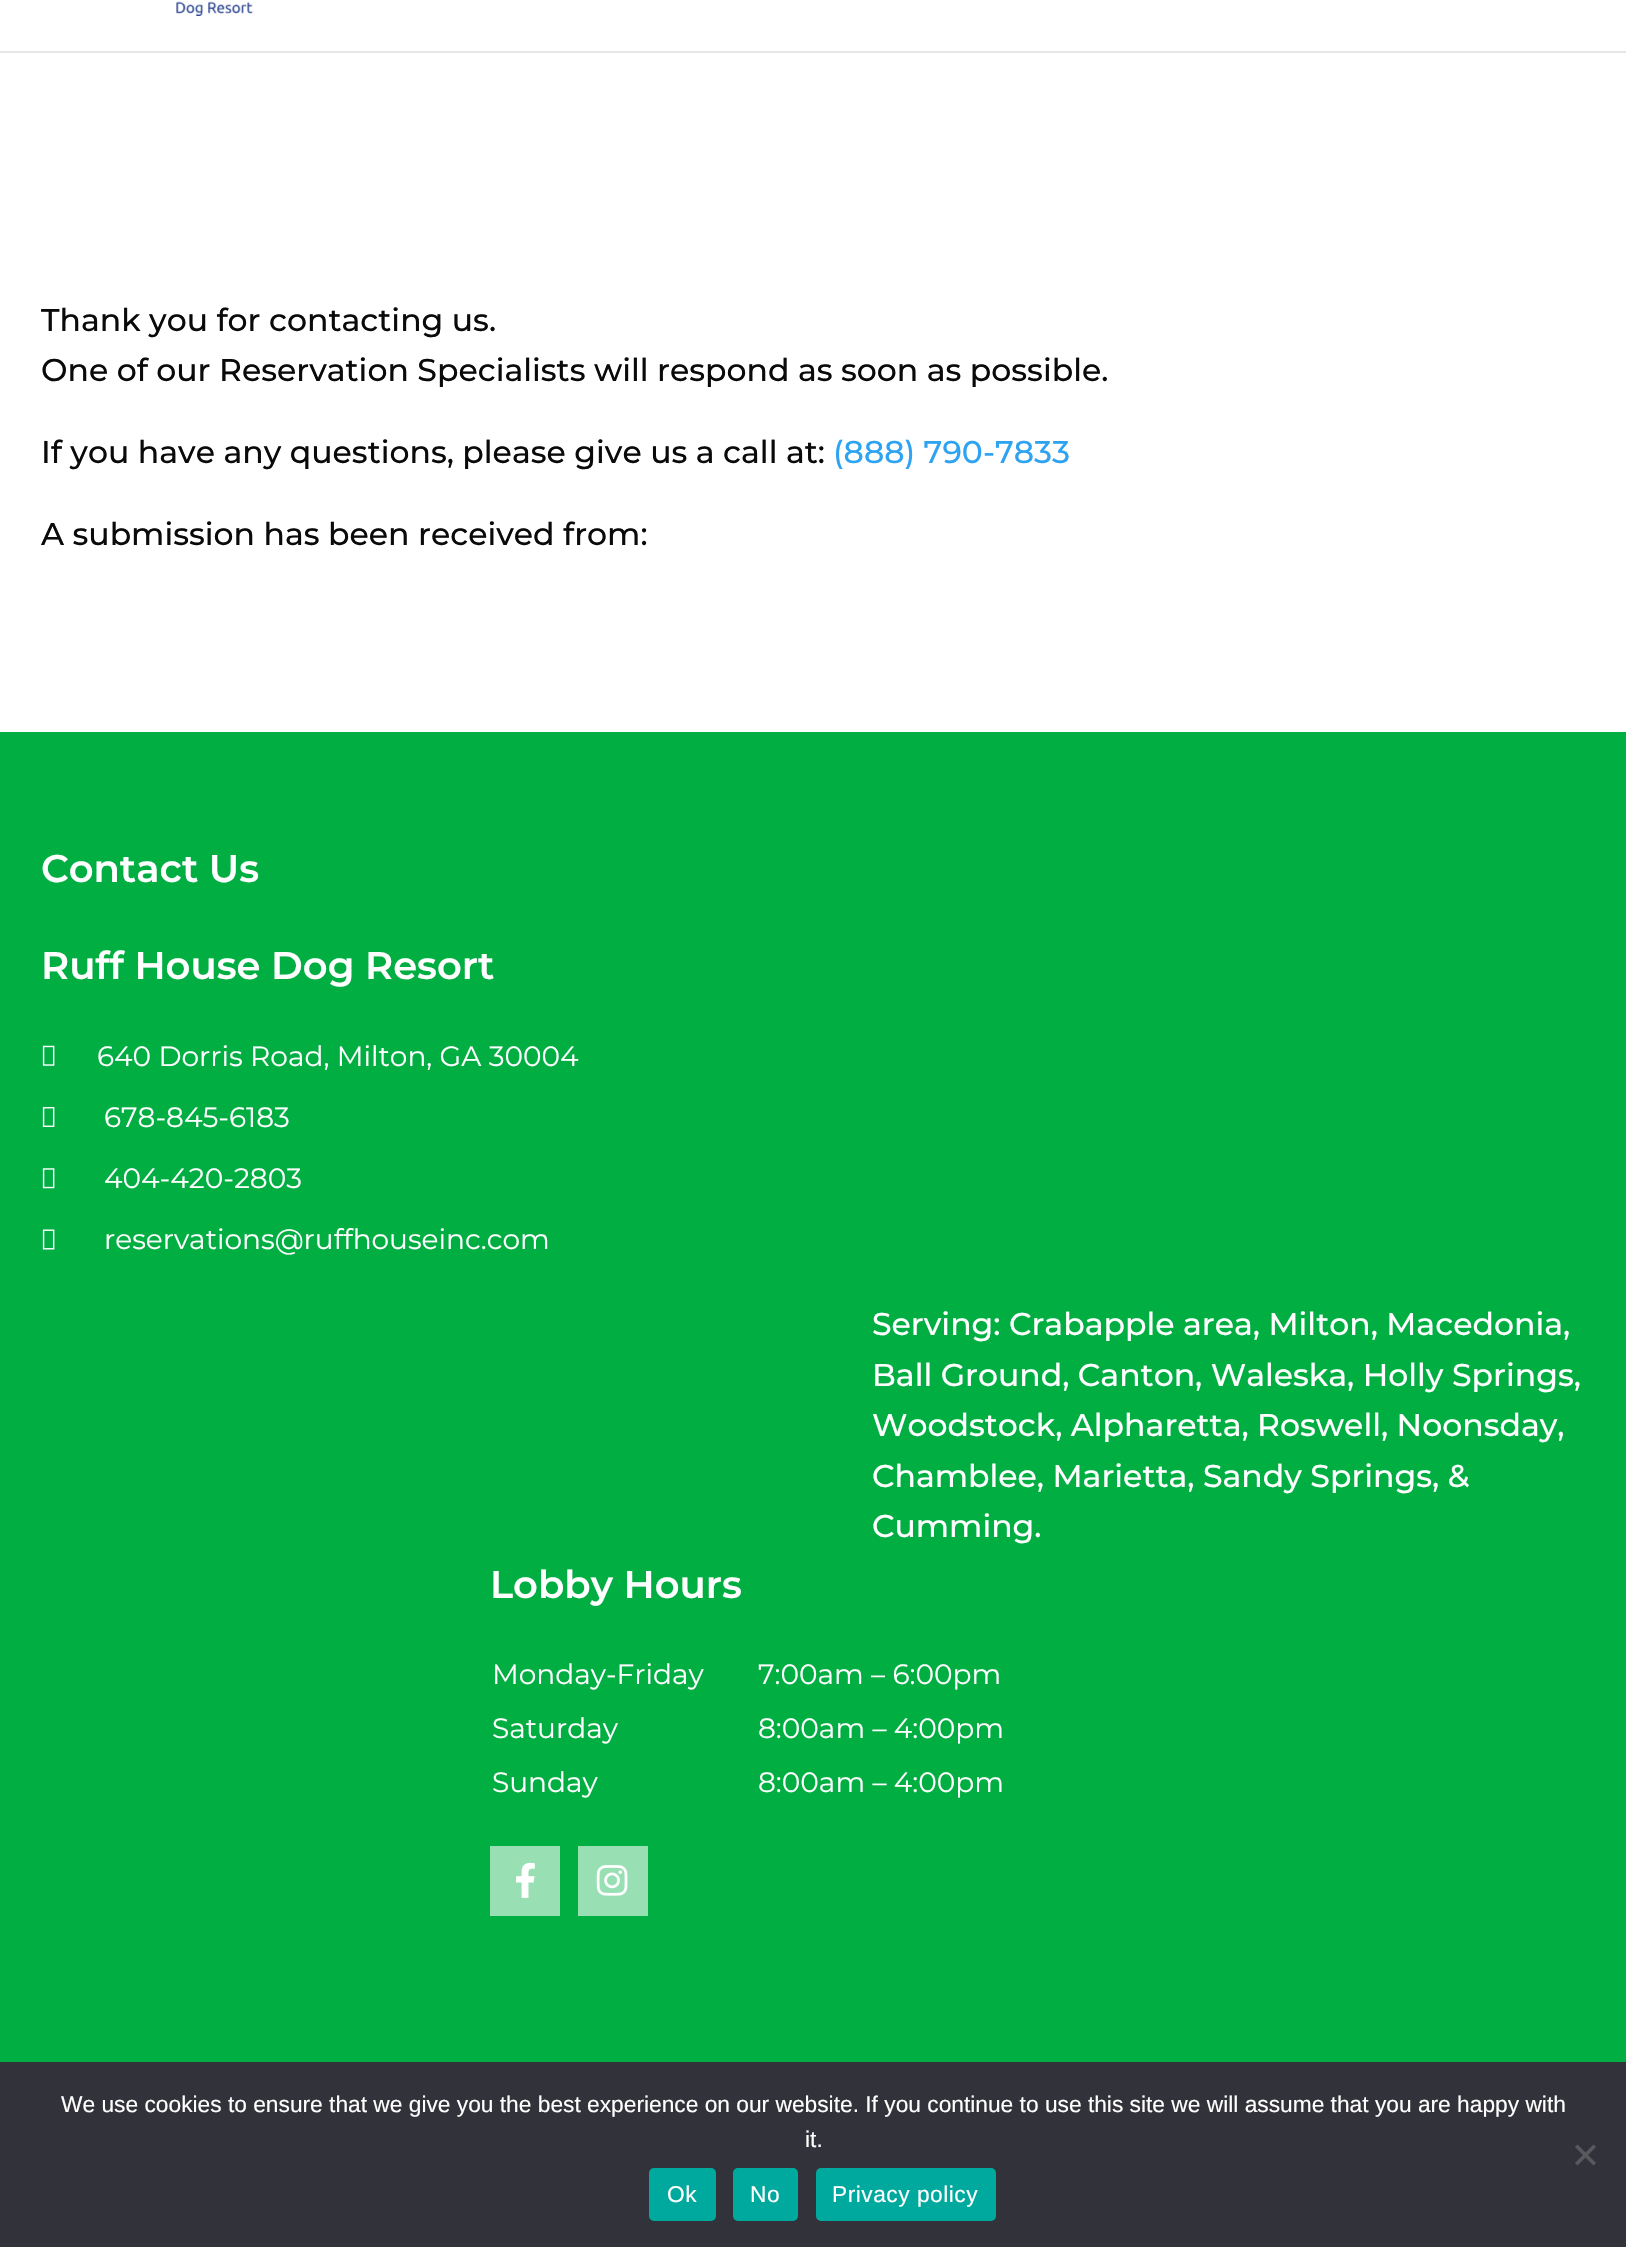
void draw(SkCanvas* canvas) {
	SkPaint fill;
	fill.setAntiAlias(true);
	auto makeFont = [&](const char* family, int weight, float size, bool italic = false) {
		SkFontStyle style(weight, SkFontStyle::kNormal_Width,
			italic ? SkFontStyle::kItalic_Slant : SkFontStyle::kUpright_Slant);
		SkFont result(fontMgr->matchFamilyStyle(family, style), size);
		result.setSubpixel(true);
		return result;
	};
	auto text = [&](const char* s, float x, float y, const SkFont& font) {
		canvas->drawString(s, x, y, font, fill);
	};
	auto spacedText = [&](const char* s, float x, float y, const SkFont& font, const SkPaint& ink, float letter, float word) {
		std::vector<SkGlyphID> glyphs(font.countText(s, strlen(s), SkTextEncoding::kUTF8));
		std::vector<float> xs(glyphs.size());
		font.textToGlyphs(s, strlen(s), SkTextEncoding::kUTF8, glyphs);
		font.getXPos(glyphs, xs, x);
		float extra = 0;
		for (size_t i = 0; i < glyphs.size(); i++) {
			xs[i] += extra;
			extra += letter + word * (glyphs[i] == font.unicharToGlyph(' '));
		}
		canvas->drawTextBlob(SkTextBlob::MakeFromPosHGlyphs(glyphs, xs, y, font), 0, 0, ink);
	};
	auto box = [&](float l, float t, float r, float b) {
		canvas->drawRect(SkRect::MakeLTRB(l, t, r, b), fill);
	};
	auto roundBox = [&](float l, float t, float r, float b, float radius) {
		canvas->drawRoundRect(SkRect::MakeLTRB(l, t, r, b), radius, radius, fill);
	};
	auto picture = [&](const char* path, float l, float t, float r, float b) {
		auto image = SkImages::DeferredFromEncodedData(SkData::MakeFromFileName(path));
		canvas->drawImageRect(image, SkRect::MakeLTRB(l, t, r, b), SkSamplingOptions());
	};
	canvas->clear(0xFFFFFFFF);
	fill.setColor(0xFFE6E6E6);
	canvas->drawPath(SkPathBuilder().moveTo(0, 51).lineTo(0, 53).lineTo(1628, 53).lineTo(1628, -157).lineTo(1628, 51).close().detach(), fill);
	picture("image0.png", 176, 1, 253, 16);
	fill.setColor(0xFF00AE42);
	box(0, 732, 1626, 2062);
	picture("image1.png", 42, 1045, 55, 1066);
	picture("image2.png", 42, 1107, 55, 1127);
	picture("image3.png", 42, 1168, 55, 1189);
	picture("image4.png", 42, 1229, 55, 1250);
	fill.setColor(0xFF99DFB4);
	box(490, 1846, 560, 1916);
	picture("image5.png", 516, 1862, 535, 1898);
	box(578, 1846, 648, 1916);
	picture("image6.png", 596, 1865, 628, 1896);
	fill.setColor(0xFF32323A);
	box(0, 2062, 1626, 2247);
	fill.setColor(0xFF59595D);
	canvas->drawPath(SkPathBuilder().moveTo(1593.5f, 2144.5f).lineTo(1596, 2147).lineTo(1577.5f, 2165.5f).lineTo(1575, 2163).close().detach(), fill);
	canvas->drawPath(SkPathBuilder().moveTo(1575, 2147).lineTo(1577.5f, 2144.5f).lineTo(1596, 2163).lineTo(1593.5f, 2165.5f).close().detach(), fill);
	fill.setColor(0xFF00A99D);
	roundBox(649, 2168, 716, 2221, 5);
	roundBox(733, 2168, 798, 2221, 5);
	roundBox(816, 2168, 996, 2221, 5);
	auto font1 = makeFont("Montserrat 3", 100, 31.5f);
	fill.setColor(0xFF0A0A0A);
	text("Thank you for contacting us.", 41, 331, font1);
	text("One of our Reservation Specialists will respond as soon as possible.", 41, 381, font1);
	text("If you have any questions, please give us a call at:", 41, 463, font1);
	fill.setColor(0xFF2EA3F2);
	text("(888) 790-7833", 833, 463, font1);
	fill.setColor(0xFF0A0A0A);
	text("A submission has been received from:", 41, 545, font1);
	auto font2 = makeFont("Montserrat", 100, 38.5f);
	fill.setColor(0xFFFFFFFF);
	text("Contact Us", 41, 882, font2);
	text("Ruff House Dog Resort", 41, 979, font2);
	auto font3 = makeFont("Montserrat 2", 100, 28);
	text("640 Dorris Road, Milton, GA 30004", 97, 1066, font3);
	text("678-845-6183", 104, 1127, font3);
	text("404-420-2803", 104, 1188, font3);
	text("reservations@ruffhouseinc.com", 104, 1249, font3);
	text("Serving: Crabapple area, Milton, Macedonia,", 872, 1335, font1);
	text("Ball Ground, Canton, Waleska, Holly Springs,", 872, 1386, font1);
	text("Woodstock, Alpharetta, Roswell, Noonsday,", 872, 1436, font1);
	text("Chamblee, Marietta, Sandy Springs, &", 872, 1487, font1);
	text("Cumming.", 872, 1537, font1);
	text("Lobby Hours", 490, 1598, font2);
	text("Monday-Friday", 492, 1684, font3);
	text("7:00am – 6:00pm", 758, 1684, font3);
	text("Saturday", 492, 1738, font3);
	text("8:00am – 4:00pm", 758, 1738, font3);
	text("Sunday", 492, 1792, font3);
	text("8:00am – 4:00pm", 758, 1792, font3);
	auto font4 = makeFont("Liberation Sans", 400, 22.75f);
	text("We use cookies to ensure that we give you the best experience on our website. If you continue to use this site we will assume that you are happy with", 61, 2112, font4);
	text("it.", 805, 2147, font4);
	spacedText("Ok", 667, 2202, font4, fill, 0.5f, 0);
	spacedText("No", 750, 2202, font4, fill, 0.5f, 0);
	spacedText("Privacy policy", 832, 2202, font4, fill, 0.5f, 0);
}
